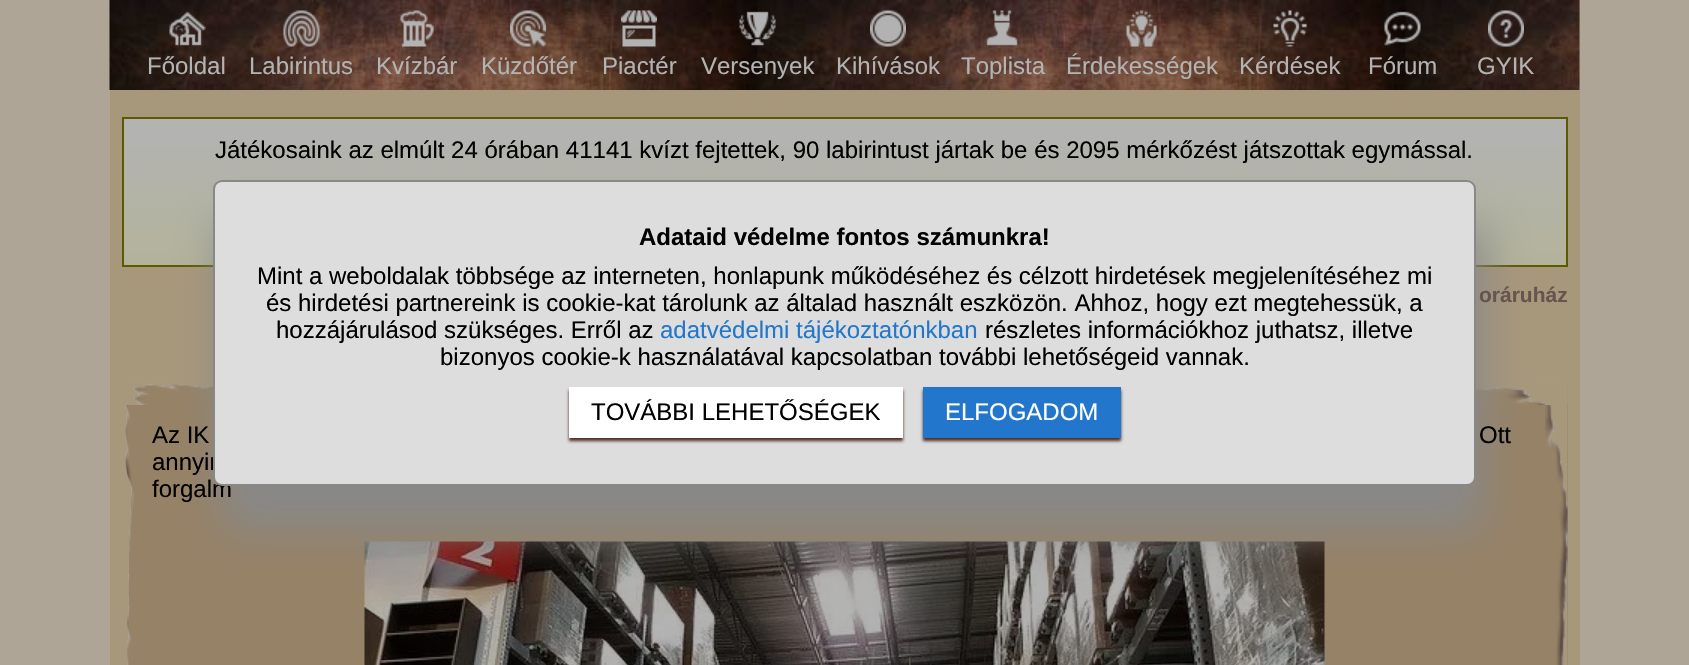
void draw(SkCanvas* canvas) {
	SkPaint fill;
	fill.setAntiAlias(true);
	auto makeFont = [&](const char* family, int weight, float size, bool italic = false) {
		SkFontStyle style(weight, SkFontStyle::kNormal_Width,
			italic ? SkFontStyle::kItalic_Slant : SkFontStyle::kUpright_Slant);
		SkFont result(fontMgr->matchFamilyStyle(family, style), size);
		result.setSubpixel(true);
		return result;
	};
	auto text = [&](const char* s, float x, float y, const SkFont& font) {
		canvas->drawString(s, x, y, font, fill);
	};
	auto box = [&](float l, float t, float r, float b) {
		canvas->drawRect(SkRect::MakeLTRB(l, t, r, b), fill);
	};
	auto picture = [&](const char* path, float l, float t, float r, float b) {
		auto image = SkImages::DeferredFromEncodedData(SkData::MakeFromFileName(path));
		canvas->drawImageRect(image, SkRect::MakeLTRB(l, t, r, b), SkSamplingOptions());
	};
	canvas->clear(0xFFAEA597);
	fill.setColor(0xFFA8987B);
	box(110, 0, 1580, 665);
	picture("image0.png", 109, 0, 1580, 90);
	picture("image1.png", 169, 11, 206, 46);
	picture("image2.png", 283, 10, 320, 47);
	picture("image3.png", 400, 10, 434, 47);
	picture("image4.png", 510, 10, 546, 47);
	picture("image5.png", 621, 10, 657, 47);
	picture("image6.png", 739, 11, 776, 46);
	picture("image7.png", 870, 10, 906, 47);
	picture("image8.png", 986, 10, 1018, 46);
	picture("image9.png", 1126, 10, 1157, 47);
	picture("image10.png", 1273, 10, 1307, 47);
	picture("image11.png", 1384, 11, 1421, 46);
	picture("image12.png", 1488, 10, 1524, 47);
	{
		const SkColor colors[] = {0xFFB3B3B3, 0xFFB3B39B};
		const float stops[] = {0, 1};
		const SkPoint ends[] = {{845, 118}, {845, 266}};
		fill.setShader(SkGradientShader::MakeLinear(ends, colors, stops, 2, SkTileMode::kClamp));
		fill.setAlpha(255);
	}
	box(124, 119, 1566, 265);
	fill.setStyle(SkPaint::kStroke_Style);
	fill.setStrokeWidth(2);
	fill.setShader(nullptr);
	fill.setColor(0xFF5A5A00);
	canvas->drawRect(SkRect::MakeLTRB(123, 118, 1567, 266), fill);
	fill.setStyle(SkPaint::kFill_Style);
	fill.setColor(0xFF968266);
	box(144, 383, 1568, 665);
	picture("image13.png", 122, 382, 1568, 665);
	picture("image14.png", 364, 541, 1325, 665);
	fill.setColor(0xFF888888);
	fill.setMaskFilter(SkMaskFilter::MakeBlur(kNormal_SkBlurStyle, 22.5f));
	canvas->drawRoundRect(SkRect::MakeLTRB(221, 225, 1484, 531), 9, 9, fill);
	fill.setMaskFilter(nullptr);
	auto font1 = makeFont("Liberation Sans", 400, 24);
	fill.setColor(0xFFB3B3B3);
	text("Főoldal", 147, 74, font1);
	text("Labirintus", 249, 74, font1);
	text("Kvízbár", 376, 74, font1);
	text("Küzdőtér", 481, 74, font1);
	text("Piactér", 602, 74, font1);
	text("Versenyek", 701, 74, font1);
	text("Kihívások", 836, 74, font1);
	text("Toplista", 961, 74, font1);
	text("Érdekességek", 1066, 74, font1);
	text("Kérdések", 1239, 74, font1);
	text("Fórum", 1368, 74, font1);
	text("GYIK", 1477, 74, font1);
	fill.setColor(0xFF000000);
	text("Játékosaink az elmúlt 24 órában 41141 kvízt fejtettek, 90 labirintust jártak be és 2095 mérkőzést játszottak egymással.", 215, 158, font1);
	auto font2 = makeFont("Liberation Sans", 700, 21);
	fill.setColor(0xFF66544E);
	text("oráruház", 1479, 302, font2);
	fill.setColor(0xFF000000);
	text("Az IK", 152, 443, font1);
	text("Ott", 1479, 443, font1);
	text("annyir", 152, 470, font1);
	text("forgalm", 152, 497, font1);
	fill.setColor(0xFFDDDDDD);
	canvas->drawRoundRect(SkRect::MakeLTRB(214, 181, 1475, 485), 8, 8, fill);
	fill.setStyle(SkPaint::kStroke_Style);
	fill.setColor(0xFF888888);
	canvas->drawRoundRect(SkRect::MakeLTRB(214, 181, 1475, 485), 8, 8, fill);
	auto font3 = makeFont("Liberation Sans", 700, 24);
	fill.setStyle(SkPaint::kFill_Style);
	fill.setColor(0xFF000000);
	text("Adataid védelme fontos számunkra!", 639, 245, font3);
	text("Mint a weboldalak többsége az interneten, honlapunk működéséhez és célzott hirdetések megjelenítéséhez mi", 257, 284, font1);
	text("és hirdetési partnereink is cookie-kat tárolunk az általad használt eszközön. Ahhoz, hogy ezt megtehessük, a", 266, 311, font1);
	text("hozzájárulásod szükséges. Erről az", 276, 338, font1);
	fill.setColor(0xFF2277CC);
	text("adatvédelmi tájékoztatónkban", 660, 338, font1);
	fill.setColor(0xFF000000);
	text("részletes információkhoz juthatsz, illetve", 985, 338, font1);
	text("bizonyos cookie-k használatával kapcsolatban további lehetőségeid vannak.", 440, 365, font1);
	fill.setColor(0xFF4E2B21);
	fill.setMaskFilter(SkMaskFilter::MakeBlur(kNormal_SkBlurStyle, 1.5f));
	canvas->drawRect(SkRect::MakeLTRB(569, 390, 903, 441), fill);
	fill.setMaskFilter(nullptr);
	fill.setColor(0xFFFFFFFF);
	box(569, 387, 903, 438);
	fill.setColor(0xFF000000);
	text("TOVÁBBI LEHETŐSÉGEK", 591, 420, font1);
	fill.setColor(0xFF4E2B21);
	fill.setMaskFilter(SkMaskFilter::MakeBlur(kNormal_SkBlurStyle, 1.5f));
	canvas->drawRect(SkRect::MakeLTRB(923, 390, 1121, 441), fill);
	fill.setMaskFilter(nullptr);
	fill.setColor(0xFF2277CC);
	box(923, 387, 1121, 438);
	fill.setColor(0xFFFFFFFF);
	text("ELFOGADOM", 945, 420, font1);
}
